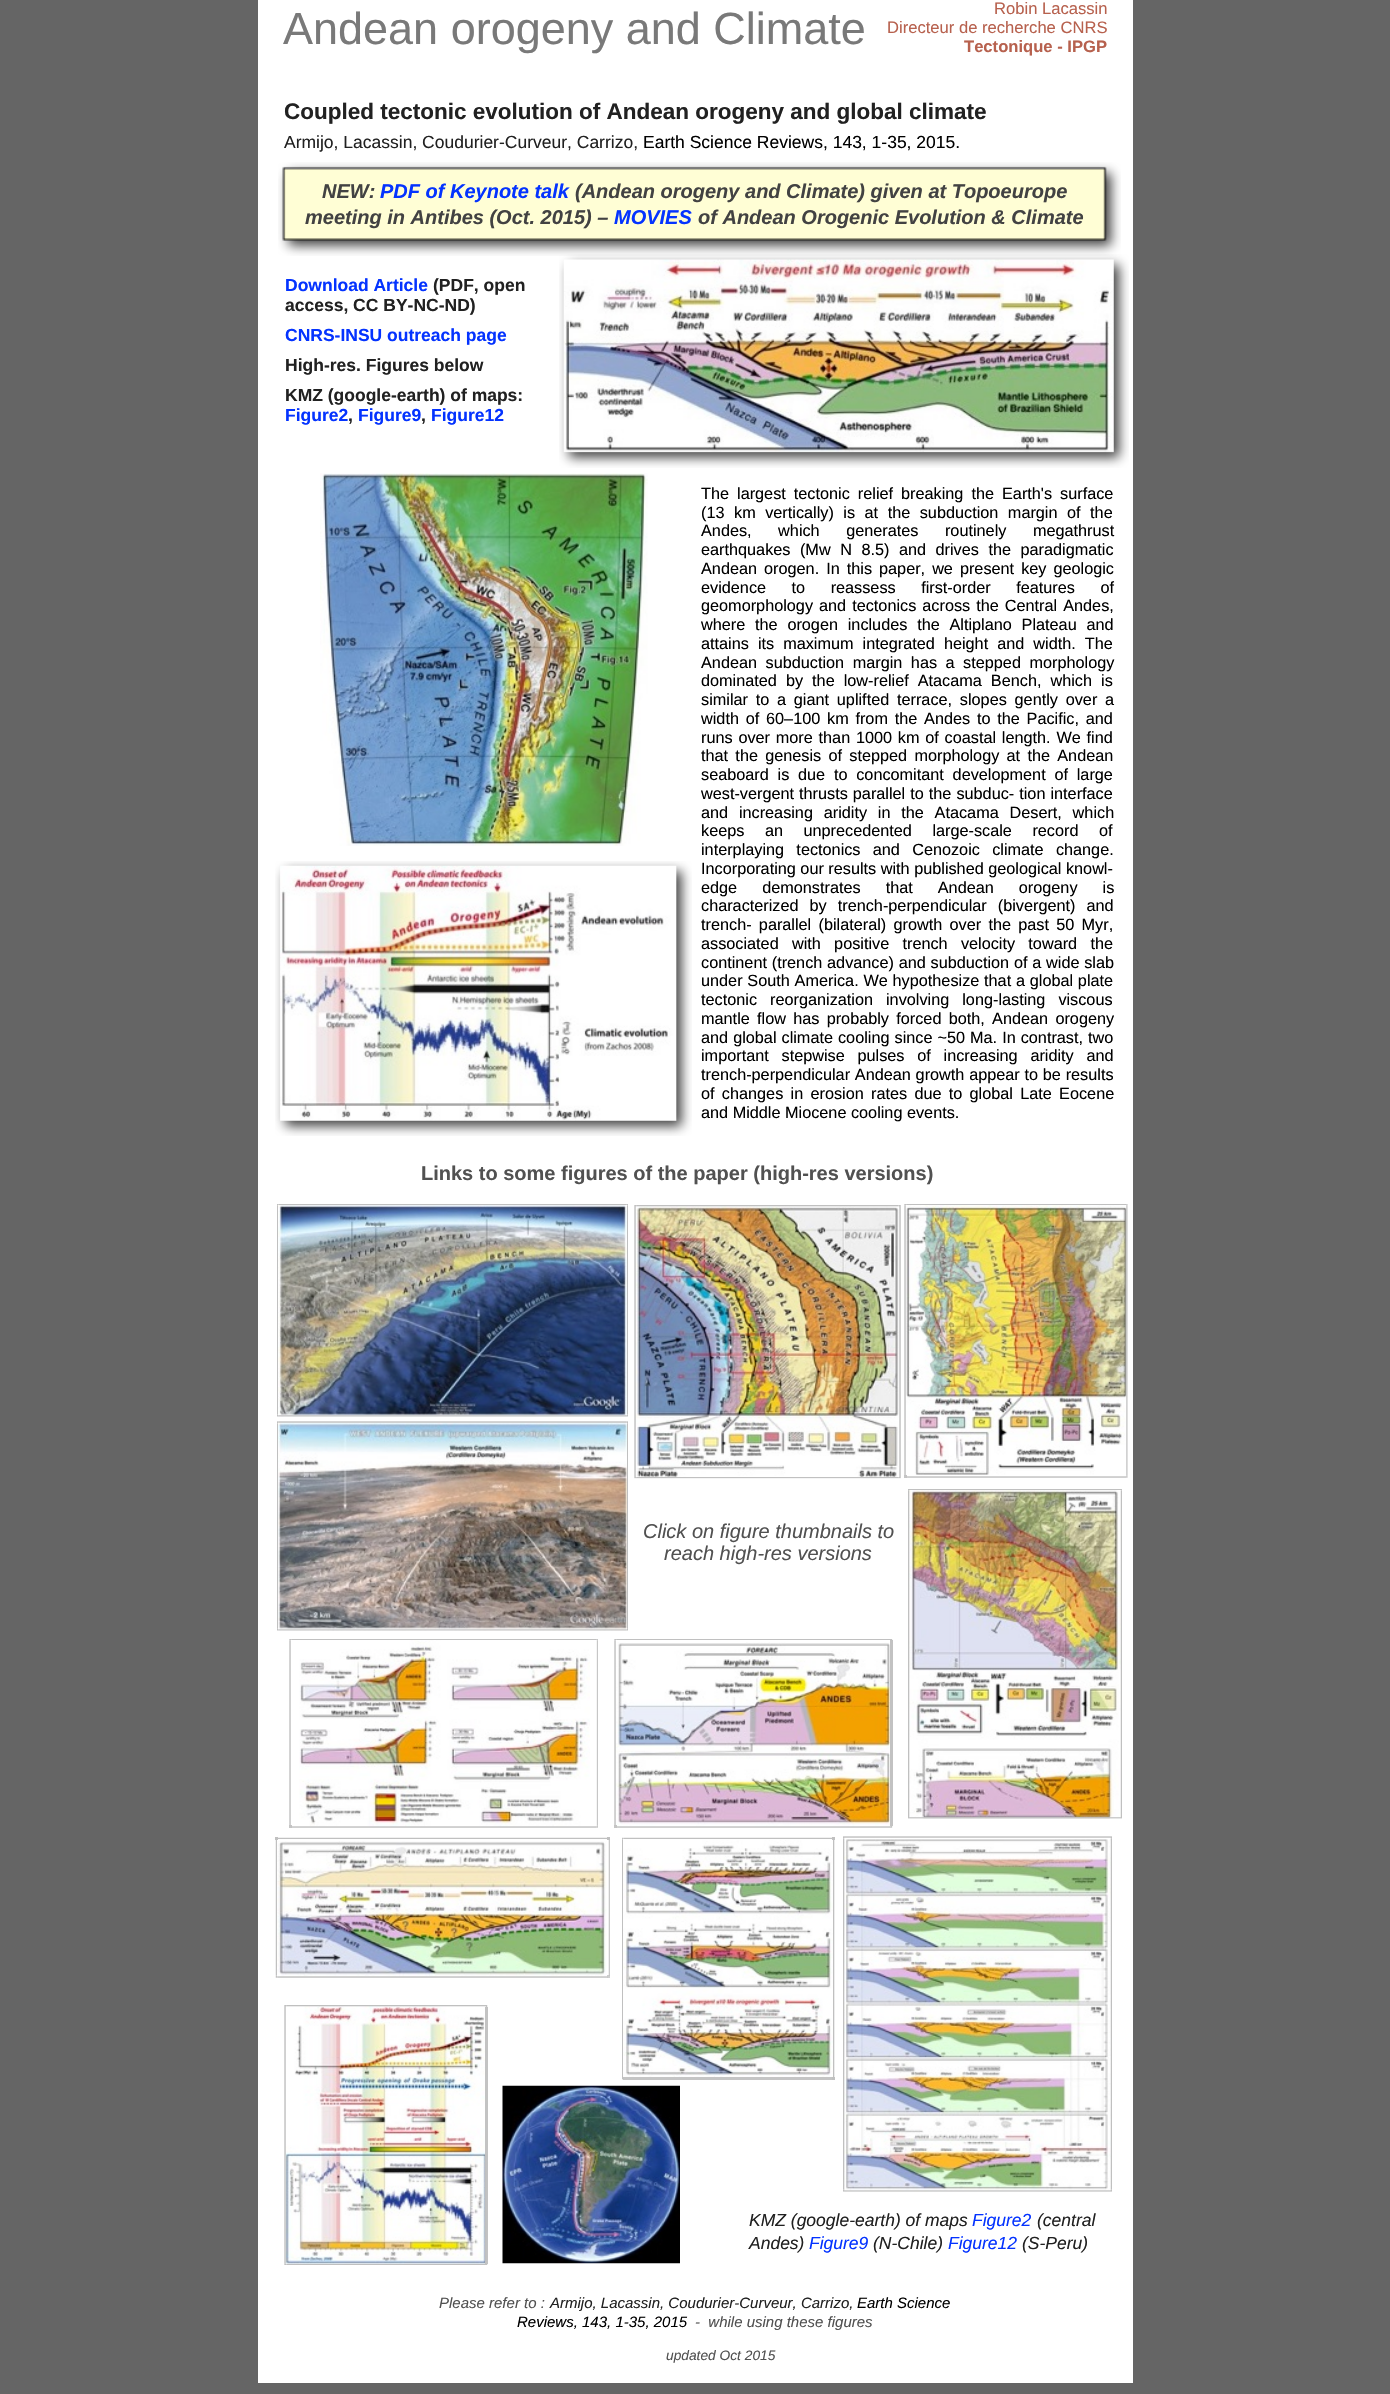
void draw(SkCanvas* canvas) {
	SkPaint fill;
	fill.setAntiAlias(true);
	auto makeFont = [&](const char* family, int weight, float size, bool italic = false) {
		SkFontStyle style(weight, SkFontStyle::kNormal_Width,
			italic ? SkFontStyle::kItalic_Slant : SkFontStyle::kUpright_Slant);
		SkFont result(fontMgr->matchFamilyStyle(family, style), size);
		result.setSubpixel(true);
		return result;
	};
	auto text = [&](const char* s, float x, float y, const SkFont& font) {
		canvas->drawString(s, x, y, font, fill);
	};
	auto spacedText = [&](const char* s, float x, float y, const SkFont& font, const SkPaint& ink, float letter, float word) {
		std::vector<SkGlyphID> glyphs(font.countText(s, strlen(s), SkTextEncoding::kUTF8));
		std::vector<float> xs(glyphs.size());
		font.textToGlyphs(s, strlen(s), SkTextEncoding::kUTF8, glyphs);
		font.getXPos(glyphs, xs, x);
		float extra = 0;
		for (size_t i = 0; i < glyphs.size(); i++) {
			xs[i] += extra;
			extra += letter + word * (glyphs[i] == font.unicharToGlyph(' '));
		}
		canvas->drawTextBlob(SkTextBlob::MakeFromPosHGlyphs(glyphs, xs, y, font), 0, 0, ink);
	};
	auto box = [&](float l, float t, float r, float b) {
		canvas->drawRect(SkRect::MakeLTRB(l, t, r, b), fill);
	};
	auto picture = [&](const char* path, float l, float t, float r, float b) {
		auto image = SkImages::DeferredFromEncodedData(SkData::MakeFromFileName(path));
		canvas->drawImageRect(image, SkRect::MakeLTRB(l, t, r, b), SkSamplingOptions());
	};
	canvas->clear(0xFF656565);
	fill.setColor(0xFFFFFFFF);
	box(258, 0, 1133, 2383);
	fill.setColor(0xFFFFFED5);
	box(284, 169, 1105, 240);
	picture("image1.png", 559, 254, 1129, 468);
	picture("image0.png", 278, 162, 1121, 256);
	picture("image2.png", 320, 473, 648, 846);
	picture("image3.png", 275, 861, 692, 1136);
	picture("image4.png", 277, 1204, 628, 1417);
	picture("image7.png", 277, 1205, 278, 1415);
	picture("image5.png", 277, 1204, 279, 1206);
	picture("image6.png", 279, 1204, 627, 1205);
	picture("image8.png", 626, 1204, 628, 1206);
	picture("image9.png", 627, 1206, 628, 1415);
	picture("image11.png", 626, 1414, 628, 1417);
	picture("image12.png", 278, 1415, 627, 1417);
	picture("image10.png", 277, 1414, 279, 1417);
	picture("image16.png", 635, 1206, 900, 1478);
	picture("image13.png", 634, 1205, 637, 1207);
	picture("image14.png", 636, 1205, 899, 1207);
	picture("image15.png", 899, 1205, 901, 1207);
	picture("image17.png", 634, 1207, 636, 1477);
	picture("image18.png", 899, 1207, 901, 1477);
	picture("image21.png", 898, 1477, 901, 1479);
	picture("image20.png", 636, 1477, 899, 1479);
	picture("image19.png", 634, 1477, 637, 1479);
	picture("image23.png", 905, 1204, 1127, 1475);
	picture("image25.png", 904, 1205, 906, 1476);
	picture("image22.png", 904, 1204, 907, 1206);
	picture("image24.png", 906, 1204, 1127, 1205);
	picture("image26.png", 1126, 1204, 1128, 1206);
	picture("image27.png", 1126, 1205, 1128, 1476);
	picture("image28.png", 1126, 1475, 1128, 1478);
	picture("image29.png", 906, 1476, 1127, 1478);
	fill.setColor(0xEBC0C0C0);
	box(904, 1475, 907, 1478);
	picture("image33.png", 277, 1422, 628, 1631);
	picture("image30.png", 277, 1421, 279, 1423);
	picture("image31.png", 278, 1421, 627, 1423);
	picture("image32.png", 626, 1421, 628, 1424);
	picture("image34.png", 277, 1423, 278, 1629);
	picture("image35.png", 627, 1423, 628, 1629);
	picture("image37.png", 626, 1628, 628, 1631);
	picture("image38.png", 278, 1629, 627, 1631);
	picture("image36.png", 277, 1628, 279, 1631);
	picture("image42.png", 909, 1490, 1121, 1819);
	picture("image41.png", 908, 1490, 910, 1817);
	picture("image39.png", 908, 1489, 910, 1491);
	fill.setColor(0xFFC0C0C0);
	box(910, 1489, 1120, 1490);
	picture("image40.png", 1120, 1489, 1122, 1491);
	picture("image43.png", 1120, 1491, 1122, 1817);
	picture("image44.png", 908, 1817, 910, 1819);
	picture("image45.png", 910, 1817, 1120, 1819);
	picture("image46.png", 1120, 1817, 1122, 1819);
	picture("image49.png", 289, 1640, 291, 1826);
	picture("image47.png", 289, 1639, 292, 1641);
	picture("image48.png", 291, 1639, 597, 1640);
	picture("image50.png", 299, 1640, 590, 1827);
	picture("image51.png", 596, 1639, 598, 1641);
	picture("image52.png", 596, 1640, 598, 1826);
	picture("image53.png", 596, 1825, 598, 1828);
	picture("image54.png", 291, 1826, 597, 1828);
	fill.setColor(0xEBC0C0C0);
	box(289, 1825, 292, 1828);
	picture("image58.png", 615, 1642, 893, 1827);
	picture("image57.png", 614, 1640, 616, 1826);
	picture("image47.png", 614, 1639, 617, 1641);
	picture("image55.png", 616, 1639, 890, 1640);
	picture("image56.png", 890, 1639, 893, 1641);
	fill.setColor(0xF5C0C0C0);
	box(890, 1640, 893, 1826);
	picture("image59.png", 616, 1826, 890, 1828);
	fill.setColor(0xEBC0C0C0);
	box(614, 1825, 617, 1828);
	picture("image60.png", 890, 1826, 893, 1828);
	fill.setColor(0xFFC0C0C0);
	box(275, 1837, 278, 1840);
	picture("image61.png", 278, 1837, 607, 1839);
	box(607, 1837, 610, 1840);
	picture("image64.png", 276, 1841, 607, 1977);
	picture("image62.png", 275, 1840, 277, 1976);
	picture("image63.png", 608, 1840, 610, 1976);
	fill.setColor(0xC2BFBFBF);
	box(607, 1975, 610, 1978);
	picture("image66.png", 277, 1976, 608, 1978);
	picture("image65.png", 275, 1976, 278, 1978);
	picture("image69.png", 622, 1839, 623, 2077);
	picture("image67.png", 622, 1837, 624, 1840);
	picture("image68.png", 624, 1837, 832, 1839);
	fill.setColor(0xFFC0C0C0);
	box(832, 1837, 835, 1840);
	picture("image70.png", 623, 1840, 833, 2078);
	picture("image71.png", 833, 1840, 835, 2077);
	fill.setColor(0xEBC0C0C0);
	box(623, 2077, 832, 2080);
	picture("image72.png", 622, 2077, 624, 2080);
	fill.setColor(0xFFC0C0C0);
	box(832, 2077, 835, 2080);
	picture("image73.png", 843, 1836, 845, 1838);
	picture("image74.png", 845, 1836, 1110, 1838);
	picture("image75.png", 1110, 1836, 1112, 1839);
	picture("image78.png", 843, 1839, 1111, 2192);
	picture("image76.png", 843, 1838, 845, 2190);
	picture("image77.png", 1110, 1838, 1112, 2190);
	picture("image79.png", 843, 2189, 845, 2192);
	picture("image80.png", 845, 2190, 1110, 2192);
	picture("image81.png", 1110, 2189, 1112, 2192);
	picture("image83.png", 285, 2005, 488, 2265);
	picture("image82.png", 284, 2005, 287, 2007);
	picture("image84.png", 286, 2005, 485, 2007);
	picture("image85.png", 485, 2005, 488, 2007);
	picture("image86.png", 284, 2007, 286, 2264);
	fill.setColor(0xF2C0C0C0);
	box(485, 2007, 488, 2264);
	picture("image87.png", 284, 2263, 286, 2265);
	picture("image88.png", 286, 2264, 485, 2265);
	picture("image89.png", 485, 2264, 488, 2265);
	picture("image90.png", 502, 2085, 680, 2264);
	auto font1 = makeFont("Liberation Sans", 400, 45);
	fill.setColor(0xFF797979);
	text("Andean orogeny and Climate", 283, 44, font1);
	auto font2 = makeFont("Liberation Sans", 400, 16.6f);
	fill.setColor(0xFFB7614E);
	text("Robin Lacassin", 994, 14, font2);
	text("Directeur de recherche CNRS", 887, 33, font2);
	auto font3 = makeFont("Liberation Sans", 700, 16.6f);
	text("Tectonique - IPGP", 964, 52, font3);
	auto font4 = makeFont("Liberation Sans", 700, 22.5f);
	fill.setColor(0xFF212121);
	text("Coupled tectonic evolution of Andean orogeny and global climate", 284, 119, font4);
	auto font5 = makeFont("Liberation Sans", 400, 17.5f);
	text("Armijo, Lacassin, Coudurier-Curveur, Carrizo,", 284, 148, font5);
	fill.setColor(0xFF000000);
	text("Earth Science Reviews, 143, 1-35, 2015.", 643, 148, font5);
	auto font6 = makeFont("Liberation Sans", 700, 20, true);
	fill.setColor(0xFF424242);
	text("NEW:", 322, 198, font6);
	fill.setColor(0xFF0433FF);
	text("PDF of Keynote talk", 380, 198, font6);
	fill.setColor(0xFF424242);
	text("(Andean orogeny and Climate) given at Topoeurope", 575, 198, font6);
	text("meeting in Antibes (Oct. 2015) –", 305, 224, font6);
	fill.setColor(0xFF0433FF);
	text("MOVIES", 614, 224, font6);
	fill.setColor(0xFF424242);
	text("of Andean Orogenic Evolution & Climate", 698, 224, font6);
	auto font7 = makeFont("Liberation Sans", 700, 17.5f);
	fill.setColor(0xFF0433FF);
	text("Download Article", 285, 291, font7);
	fill.setColor(0xFF212121);
	text("(PDF, open", 433, 291, font7);
	text("access, CC BY-NC-ND)", 285, 311, font7);
	fill.setColor(0xFF0433FF);
	text("CNRS-INSU outreach page", 285, 341, font7);
	fill.setColor(0xFF212121);
	text("High-res. Figures below", 285, 371, font7);
	text("KMZ (google-earth) of maps:", 285, 401, font7);
	fill.setColor(0xFF0433FF);
	text("Figure2", 285, 421, font7);
	fill.setColor(0xFF212121);
	text(",", 348, 421, font7);
	fill.setColor(0xFF0433FF);
	text("Figure9", 358, 421, font7);
	fill.setColor(0xFF212121);
	text(",", 421, 421, font7);
	fill.setColor(0xFF0433FF);
	text("Figure12", 431, 421, font7);
	auto font8 = makeFont("Liberation Sans", 400, 16.25f);
	fill.setColor(0xFF000000);
	spacedText("The largest tectonic relief breaking the Earth's surface", 701, 499, font8, fill, 0, 3.5f);
	spacedText("(13 km vertically) is at the subduction margin of the", 701, 518, font8, fill, 0, 5);
	spacedText("Andes, which generates routinely megathrust", 701, 536, font8, fill, 0, 22);
	spacedText("earthquakes (Mw N 8.5) and drives the paradigmatic", 701, 555, font8, fill, 0, 5);
	spacedText("Andean orogen. In this paper, we present key geologic", 701, 574, font8, fill, 0, 2.5f);
	spacedText("evidence to reassess first-order features of", 701, 593, font8, fill, 0, 21);
	spacedText("geomorphology and tectonics across the Central Andes,", 701, 611, font8, fill, 0, 1.5f);
	spacedText("where the orogen includes the Altiplano Plateau and", 701, 630, font8, fill, 0, 5.25f);
	spacedText("attains its maximum integrated height and width. The", 701, 649, font8, fill, 0, 4.5f);
	spacedText("Andean subduction margin has a stepped morphology", 701, 668, font8, fill, 0, 4);
	spacedText("dominated by the low-relief Atacama Bench, which is", 701, 686, font8, fill, 0, 4.5f);
	spacedText("similar to a giant uplifted terrace, slopes gently over a", 701, 705, font8, fill, 0, 3.25f);
	spacedText("width of 60–100 km from the Andes to the Pacific, and", 701, 724, font8, fill, 0, 2.25f);
	spacedText("runs over more than 1000 km of coastal length. We find", 701, 743, font8, fill, 0, 1.25f);
	spacedText("that the genesis of stepped morphology at the Andean", 701, 761, font8, fill, 0, 2.75f);
	spacedText("seaboard is due to concomitant development of large", 701, 780, font8, fill, 0, 4.25f);
	spacedText("west-vergent thrusts parallel to the subduc- tion interface", 701, 799, font8, fill, 0, 0.5f);
	spacedText("and increasing aridity in the Atacama Desert, which", 701, 818, font8, fill, 0, 6.25f);
	spacedText("keeps an unprecedented large-scale record of", 701, 836, font8, fill, 0, 16);
	spacedText("interplaying tectonics and Cenozoic climate change.", 701, 855, font8, fill, 0, 7.75f);
	text("Incorporating our results with published geological knowl-", 701, 874, font8);
	spacedText("edge demonstrates that Andean orogeny is", 701, 893, font8, fill, 0, 20.5f);
	spacedText("characterized by trench-perpendicular (bivergent) and", 701, 911, font8, fill, 0, 6.5f);
	spacedText("trench- parallel (bilateral) growth over the past 50 Myr,", 701, 930, font8, fill, 0, 2.75f);
	spacedText("associated with positive trench velocity toward the", 701, 949, font8, fill, 0, 8.75f);
	spacedText("continent (trench advance) and subduction of a wide slab", 701, 968, font8, fill, 0, 0.25f);
	spacedText("under South America. We hypothesize that a global plate", 701, 986, font8, fill, 0, 0.25f);
	spacedText("tectonic reorganization involving long-lasting viscous", 701, 1005, font8, fill, 0, 8.5f);
	spacedText("mantle flow has probably forced both, Andean orogeny", 701, 1024, font8, fill, 0, 2.75f);
	spacedText("and global climate cooling since ~50 Ma. In contrast, two", 701, 1043, font8, fill, 0, 0.5f);
	spacedText("important stepwise pulses of increasing aridity and", 701, 1061, font8, fill, 0, 8.25f);
	spacedText("trench-perpendicular Andean growth appear to be results", 701, 1080, font8, fill, 0, 0.25f);
	spacedText("of changes in erosion rates due to global Late Eocene", 701, 1099, font8, fill, 0, 2.75f);
	text("and Middle Miocene cooling events.", 701, 1118, font8);
	auto font9 = makeFont("Liberation Sans", 700, 20);
	fill.setColor(0xFF515151);
	text("Links to some figures of the paper (high-res versions)", 421, 1180, font9);
	auto font10 = makeFont("Liberation Sans", 400, 20, true);
	text("Click on figure thumbnails to", 643, 1538, font10);
	text("reach high-res versions", 664, 1560, font10);
	auto font11 = makeFont("Liberation Sans", 400, 17.5f, true);
	fill.setColor(0xFF212121);
	text("KMZ (google-earth) of maps", 749, 2226, font11);
	fill.setColor(0xFF0433FF);
	text("Figure2", 972, 2226, font11);
	fill.setColor(0xFF212121);
	text("(central", 1037, 2226, font11);
	text("Andes)", 749, 2249, font11);
	fill.setColor(0xFF0433FF);
	text("Figure9", 809, 2249, font11);
	fill.setColor(0xFF212121);
	text("(N-Chile)", 873, 2249, font11);
	fill.setColor(0xFF0433FF);
	text("Figure12", 948, 2249, font11);
	fill.setColor(0xFF212121);
	text("(S-Peru)", 1022, 2249, font11);
	auto font12 = makeFont("Liberation Sans", 400, 15, true);
	fill.setColor(0xFF515151);
	text("Please refer to :", 439, 2308, font12);
	fill.setColor(0xFF212121);
	text("Armijo, Lacassin, Coudurier-Curveur, Carrizo,", 550, 2308, font12);
	fill.setColor(0xFF000000);
	text("Earth Science", 857, 2308, font12);
	text("Reviews, 143, 1-35, 2015", 517, 2327, font12);
	fill.setColor(0xFF515151);
	text("-  while using these figures", 695, 2327, font12);
	auto font13 = makeFont("Liberation Sans", 400, 13.75f, true);
	text("updated Oct 2015", 666, 2360, font13);
}
